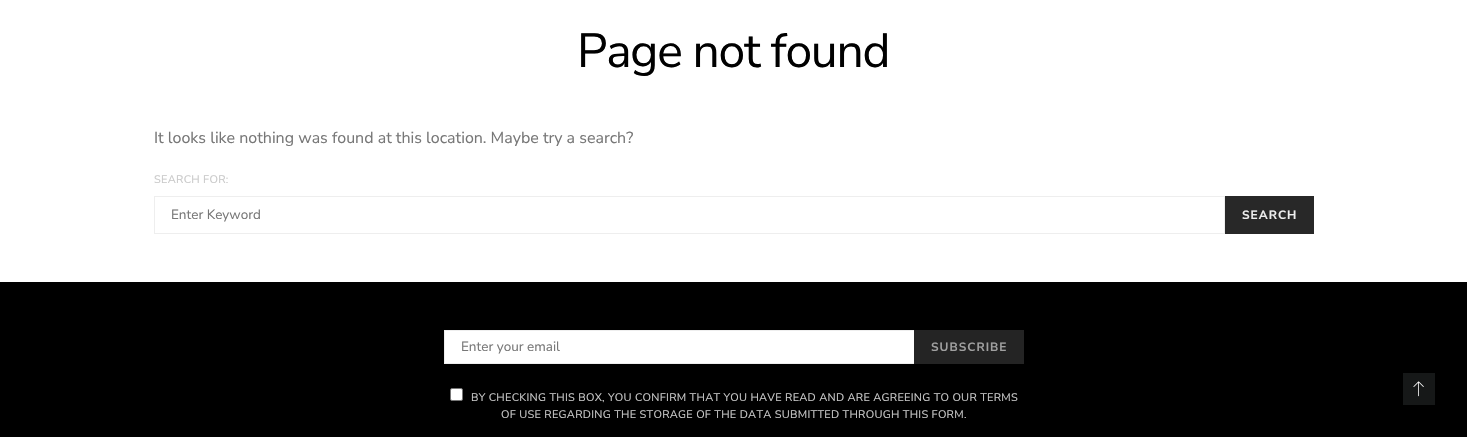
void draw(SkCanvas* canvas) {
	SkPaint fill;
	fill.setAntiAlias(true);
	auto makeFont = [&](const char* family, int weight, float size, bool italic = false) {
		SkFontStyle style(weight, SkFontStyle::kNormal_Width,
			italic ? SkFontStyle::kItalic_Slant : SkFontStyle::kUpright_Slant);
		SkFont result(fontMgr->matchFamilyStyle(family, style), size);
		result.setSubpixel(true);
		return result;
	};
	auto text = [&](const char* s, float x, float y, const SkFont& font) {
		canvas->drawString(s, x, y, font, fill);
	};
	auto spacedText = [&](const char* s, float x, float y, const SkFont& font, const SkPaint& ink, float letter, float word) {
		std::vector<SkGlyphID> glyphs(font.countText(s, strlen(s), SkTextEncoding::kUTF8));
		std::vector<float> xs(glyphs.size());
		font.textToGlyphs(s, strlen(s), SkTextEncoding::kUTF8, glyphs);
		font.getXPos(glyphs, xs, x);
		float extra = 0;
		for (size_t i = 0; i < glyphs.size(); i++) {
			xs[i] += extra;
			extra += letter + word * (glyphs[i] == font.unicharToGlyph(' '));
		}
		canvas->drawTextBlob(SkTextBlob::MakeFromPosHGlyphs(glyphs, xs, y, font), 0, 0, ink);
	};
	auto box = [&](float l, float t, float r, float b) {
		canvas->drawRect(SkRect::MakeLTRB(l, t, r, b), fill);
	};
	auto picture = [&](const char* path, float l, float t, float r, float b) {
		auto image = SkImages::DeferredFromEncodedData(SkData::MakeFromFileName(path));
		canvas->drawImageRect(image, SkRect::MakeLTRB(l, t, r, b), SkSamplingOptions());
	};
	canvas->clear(0xFFFFFFFF);
	fill.setStyle(SkPaint::kStroke_Style);
	fill.setStrokeWidth(1);
	fill.setColor(0xFFEEEEEE);
	canvas->drawRect(SkRect::MakeLTRB(154.5f, 196.5f, 1224.5f, 233.5f), fill);
	fill.setStyle(SkPaint::kFill_Style);
	fill.setColor(0xFF282828);
	box(1225, 196, 1314, 234);
	fill.setColor(0xFF000000);
	box(0, 282, 1467, 437);
	fill.setColor(0xFFFFFFFF);
	box(445, 331, 914, 363);
	fill.setColor(0xFFEEEEEE);
	box(444, 330, 914, 331);
	box(444, 363, 914, 364);
	box(444, 330, 445, 364);
	fill.setColor(0xFF242424);
	box(914, 330, 1024, 364);
	fill.setColor(0xFFFFFFFF);
	canvas->drawRoundRect(SkRect::MakeLTRB(450.5f, 388.5f, 462.5f, 400.5f), 1.5f, 1.5f, fill);
	fill.setStyle(SkPaint::kStroke_Style);
	fill.setColor(0xFF767676);
	canvas->drawRoundRect(SkRect::MakeLTRB(450.5f, 388.5f, 462.5f, 400.5f), 1.5f, 1.5f, fill);
	fill.setStyle(SkPaint::kFill_Style);
	fill.setColor(0xFF161818);
	box(1403, 373, 1435, 405);
	picture("image0.png", 1413, 381, 1424, 397);
	auto font1 = makeFont("Nunito Sans", 400, 48);
	fill.setColor(0xFF000000);
	spacedText("Page not found", 577, 67, font1, fill, -1.25f, 0);
	auto font2 = makeFont("Nunito Sans", 400, 16);
	fill.setColor(0xFF777777);
	text("It looks like nothing was found at this location. Maybe try a search?", 154, 143, font2);
	auto font3 = makeFont("Nunito Sans", 400, 11);
	fill.setColor(0xFFC9C9C9);
	spacedText("SEARCH FOR:", 154, 183, font3, fill, 0.28f, 0);
	auto font4 = makeFont("Nunito Sans", 400, 13.5f);
	fill.setColor(0xFF777777);
	text("Enter Keyword", 171, 219, font4);
	auto font5 = makeFont("Nunito Sans", 700, 12);
	fill.setColor(0xFFEEEEEE);
	spacedText("SEARCH", 1242, 219, font5, fill, 1, 0);
	fill.setColor(0xFF777777);
	text("Enter your email", 461, 351, font4);
	fill.setColor(0xFFA0A0A0);
	spacedText("SUBSCRIBE", 931, 351, font5, fill, 1, 0);
	fill.setColor(0xFFC9C9C9);
	spacedText("BY CHECKING THIS BOX, YOU CONFIRM THAT YOU HAVE READ AND ARE AGREEING TO OUR TERMS", 471, 401, font3, fill, 0.28f, 0);
	spacedText("OF USE REGARDING THE STORAGE OF THE DATA SUBMITTED THROUGH THIS FORM.", 501, 418, font3, fill, 0.28f, 0);
}
